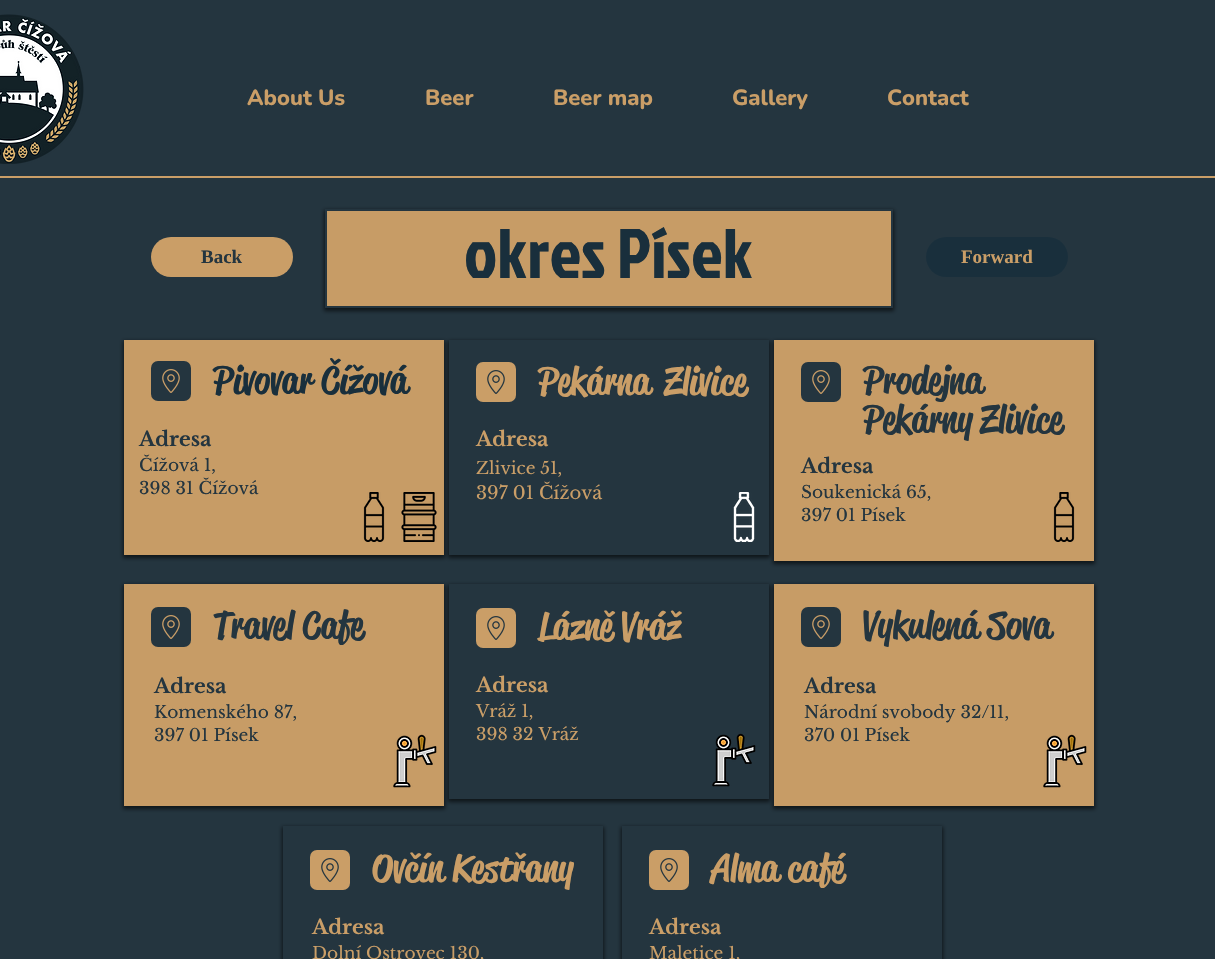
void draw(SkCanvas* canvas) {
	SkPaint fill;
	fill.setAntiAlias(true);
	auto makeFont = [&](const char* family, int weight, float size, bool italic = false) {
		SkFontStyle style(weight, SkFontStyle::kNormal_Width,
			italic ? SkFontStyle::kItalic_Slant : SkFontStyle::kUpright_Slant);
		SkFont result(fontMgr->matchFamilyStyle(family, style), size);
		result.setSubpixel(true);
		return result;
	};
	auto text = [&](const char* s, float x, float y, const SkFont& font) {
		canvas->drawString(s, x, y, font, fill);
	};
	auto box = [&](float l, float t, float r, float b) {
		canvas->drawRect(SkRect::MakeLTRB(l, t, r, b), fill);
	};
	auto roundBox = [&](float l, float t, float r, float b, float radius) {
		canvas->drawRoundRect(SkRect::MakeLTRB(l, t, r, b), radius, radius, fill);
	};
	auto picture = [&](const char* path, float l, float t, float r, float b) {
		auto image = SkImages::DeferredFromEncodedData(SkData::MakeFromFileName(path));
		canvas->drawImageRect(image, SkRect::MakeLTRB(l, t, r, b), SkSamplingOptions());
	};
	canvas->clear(0xFF24353F);
	picture("image0.png", 0, 14, 84, 164);
	fill.setColor(0xFFCA9E67);
	box(0, 176, 1215, 178);
	roundBox(151, 237, 293, 277, 20);
	fill.setColor(0x99000000);
	fill.setMaskFilter(SkMaskFilter::MakeBlur(kNormal_SkBlurStyle, 2));
	canvas->drawRect(SkRect::MakeLTRB(324, 210, 894, 311), fill);
	fill.setMaskFilter(nullptr);
	fill.setColor(0xFFC79C66);
	canvas->drawRect(SkRect::MakeLTRB(326, 210, 892, 307), fill);
	fill.setStyle(SkPaint::kStroke_Style);
	fill.setStrokeWidth(2);
	fill.setColor(0xFF24353F);
	canvas->drawRect(SkRect::MakeLTRB(326, 210, 892, 307), fill);
	fill.setStyle(SkPaint::kFill_Style);
	fill.setColor(0xFF192F3C);
	roundBox(926, 237, 1068, 277, 20);
	fill.setColor(0x99000000);
	fill.setMaskFilter(SkMaskFilter::MakeBlur(kNormal_SkBlurStyle, 2));
	canvas->drawRect(SkRect::MakeLTRB(123, 341, 445, 558), fill);
	fill.setMaskFilter(nullptr);
	fill.setColor(0xFFC79C66);
	box(124, 340, 444, 555);
	fill.setColor(0xFF24353F);
	roundBox(151, 361, 191, 401, 7);
	picture("image1.png", 162, 369, 180, 393);
	picture("image2.png", 363, 492, 385, 542);
	picture("image3.png", 401, 492, 437, 542);
	canvas->save();
	canvas->clipPath(SkPathBuilder(SkPathFillType::kEvenOdd).moveTo(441, 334).lineTo(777, 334).lineTo(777, 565).lineTo(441, 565).close().moveTo(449, 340).lineTo(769, 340).lineTo(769, 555).lineTo(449, 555).close().detach(), true);
	fill.setColor(0x99000000);
	fill.setMaskFilter(SkMaskFilter::MakeBlur(kNormal_SkBlurStyle, 2));
	canvas->drawRect(SkRect::MakeLTRB(448, 341, 770, 558), fill);
	fill.setMaskFilter(nullptr);
	canvas->restore();
	fill.setColor(0xFFCA9E67);
	roundBox(476, 362, 516, 402, 7);
	picture("image4.png", 487, 370, 505, 394);
	picture("image5.png", 733, 492, 755, 542);
	fill.setColor(0x99000000);
	fill.setMaskFilter(SkMaskFilter::MakeBlur(kNormal_SkBlurStyle, 2));
	canvas->drawRect(SkRect::MakeLTRB(773, 341, 1095, 564), fill);
	fill.setMaskFilter(nullptr);
	fill.setColor(0xFFC79C66);
	box(774, 340, 1094, 561);
	fill.setColor(0xFF24353F);
	roundBox(801, 362, 841, 402, 7);
	picture("image1.png", 812, 370, 830, 394);
	picture("image2.png", 1053, 492, 1075, 542);
	fill.setColor(0x99000000);
	fill.setMaskFilter(SkMaskFilter::MakeBlur(kNormal_SkBlurStyle, 2));
	canvas->drawRect(SkRect::MakeLTRB(123, 585, 445, 809), fill);
	fill.setMaskFilter(nullptr);
	fill.setColor(0xFFC79C66);
	box(124, 584, 444, 806);
	fill.setColor(0xFF24353F);
	roundBox(151, 607, 191, 647, 7);
	picture("image1.png", 162, 615, 180, 639);
	picture("image6.png", 393, 734, 437, 788);
	canvas->save();
	canvas->clipPath(SkPathBuilder(SkPathFillType::kEvenOdd).moveTo(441, 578).lineTo(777, 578).lineTo(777, 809).lineTo(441, 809).close().moveTo(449, 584).lineTo(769, 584).lineTo(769, 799).lineTo(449, 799).close().detach(), true);
	fill.setColor(0x99000000);
	fill.setMaskFilter(SkMaskFilter::MakeBlur(kNormal_SkBlurStyle, 2));
	canvas->drawRect(SkRect::MakeLTRB(448, 585, 770, 802), fill);
	fill.setMaskFilter(nullptr);
	canvas->restore();
	fill.setColor(0xFFCA9E67);
	roundBox(476, 608, 516, 648, 7);
	picture("image4.png", 487, 616, 505, 640);
	picture("image7.png", 712, 733, 756, 787);
	fill.setColor(0x99000000);
	fill.setMaskFilter(SkMaskFilter::MakeBlur(kNormal_SkBlurStyle, 2));
	canvas->drawRect(SkRect::MakeLTRB(773, 585, 1095, 809), fill);
	fill.setMaskFilter(nullptr);
	fill.setColor(0xFFC79C66);
	box(774, 584, 1094, 806);
	fill.setColor(0xFF24353F);
	roundBox(801, 607, 841, 647, 7);
	picture("image1.png", 812, 615, 830, 639);
	picture("image6.png", 1043, 734, 1087, 788);
	canvas->save();
	canvas->clipPath(SkPathBuilder(SkPathFillType::kEvenOdd).moveTo(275, 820).lineTo(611, 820).lineTo(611, 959).lineTo(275, 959).close().moveTo(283, 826).lineTo(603, 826).lineTo(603, 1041).lineTo(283, 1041).close().detach(), true);
	fill.setColor(0x99000000);
	fill.setMaskFilter(SkMaskFilter::MakeBlur(kNormal_SkBlurStyle, 2));
	canvas->drawRect(SkRect::MakeLTRB(282, 827, 604, 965), fill);
	fill.setMaskFilter(nullptr);
	canvas->restore();
	fill.setColor(0xFFCA9E67);
	roundBox(310, 850, 350, 890, 7);
	picture("image4.png", 321, 858, 339, 882);
	canvas->save();
	canvas->clipPath(SkPathBuilder(SkPathFillType::kEvenOdd).moveTo(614, 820).lineTo(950, 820).lineTo(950, 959).lineTo(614, 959).close().moveTo(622, 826).lineTo(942, 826).lineTo(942, 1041).lineTo(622, 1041).close().detach(), true);
	fill.setColor(0x99000000);
	fill.setMaskFilter(SkMaskFilter::MakeBlur(kNormal_SkBlurStyle, 2));
	canvas->drawRect(SkRect::MakeLTRB(621, 827, 943, 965), fill);
	fill.setMaskFilter(nullptr);
	canvas->restore();
	fill.setColor(0xFFCA9E67);
	roundBox(649, 850, 689, 890, 7);
	picture("image4.png", 660, 858, 678, 882);
	auto font1 = makeFont("Nunito", 800, 22);
	text("About Us", 247, 105, font1);
	text("Beer", 425, 105, font1);
	text("Beer map", 553, 105, font1);
	text("Gallery", 732, 105, font1);
	text("Contact", 887, 105, font1);
	auto font2 = makeFont("Liberation Serif", 700, 19);
	fill.setColor(0xFF24353F);
	text("Back", 201, 263, font2);
	auto font3 = makeFont("Jockey One", 400, 70);
	fill.setColor(0xFF192F3C);
	text("okres Písek", 464, 278, font3);
	fill.setColor(0xFFCA9E67);
	text("Forward", 961, 263, font2);
	auto font4 = makeFont("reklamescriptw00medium", 500, 38);
	fill.setColor(0xFF192F3C);
	text("Pivovar Čížová", 213, 393, font4);
	auto font5 = makeFont("Libre Baskerville", 700, 20);
	fill.setColor(0xFF24353F);
	text("Adresa", 139, 446, font5);
	auto font6 = makeFont("Libre Baskerville", 400, 17);
	text("Čížová 1,", 139, 471, font6);
	text("398 31 Čížová", 139, 494, font6);
	fill.setColor(0xFFCA9E67);
	text("Pekárna", 538, 394, font4);
	text("Zlivice", 665, 394, font4);
	text("Adresa", 476, 446, font5);
	text("Zlivice 51,", 476, 474, font6);
	auto font7 = makeFont("Libre Baskerville", 400, 18);
	text("397 01 Čížová", 476, 499, font7);
	fill.setColor(0xFF24353F);
	text("Prodejna", 863, 393, font4);
	text("Pekárny Zlivice", 863, 432, font4);
	text("Adresa", 801, 473, font5);
	text("Soukenická 65,", 801, 498, font6);
	text("397 01 Písek", 801, 521, font6);
	text("Travel Cafe", 213, 638, font4);
	text("Adresa", 154, 693, font5);
	text("Komenského 87,", 154, 718, font6);
	text("397 01 Písek", 154, 741, font6);
	fill.setColor(0xFFCA9E67);
	text("Lázně Vráž", 538, 639, font4);
	text("Adresa", 476, 692, font5);
	text("Vráž 1,", 476, 717, font6);
	text("398 32 Vráž", 476, 740, font6);
	fill.setColor(0xFF24353F);
	text("Vykulená Sova", 863, 638, font4);
	text("Adresa", 804, 693, font5);
	text("Národní svobody 32/11,", 804, 718, font6);
	text("370 01 Písek", 804, 741, font6);
	fill.setColor(0xFFCA9E67);
	text("Ovčín Kestřany", 372, 881, font4);
	text("Adresa", 312, 934, font5);
	text("Dolní Ostrovec 130,", 312, 959, font6);
	text("Alma café", 711, 881, font4);
	text("Adresa", 649, 934, font5);
	text("Maletice 1,", 649, 959, font6);
}
